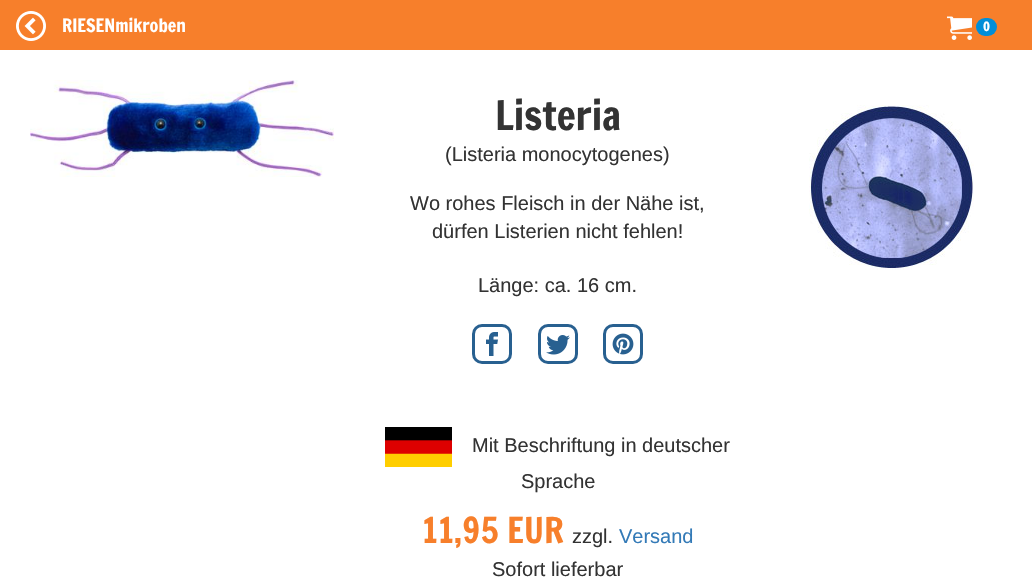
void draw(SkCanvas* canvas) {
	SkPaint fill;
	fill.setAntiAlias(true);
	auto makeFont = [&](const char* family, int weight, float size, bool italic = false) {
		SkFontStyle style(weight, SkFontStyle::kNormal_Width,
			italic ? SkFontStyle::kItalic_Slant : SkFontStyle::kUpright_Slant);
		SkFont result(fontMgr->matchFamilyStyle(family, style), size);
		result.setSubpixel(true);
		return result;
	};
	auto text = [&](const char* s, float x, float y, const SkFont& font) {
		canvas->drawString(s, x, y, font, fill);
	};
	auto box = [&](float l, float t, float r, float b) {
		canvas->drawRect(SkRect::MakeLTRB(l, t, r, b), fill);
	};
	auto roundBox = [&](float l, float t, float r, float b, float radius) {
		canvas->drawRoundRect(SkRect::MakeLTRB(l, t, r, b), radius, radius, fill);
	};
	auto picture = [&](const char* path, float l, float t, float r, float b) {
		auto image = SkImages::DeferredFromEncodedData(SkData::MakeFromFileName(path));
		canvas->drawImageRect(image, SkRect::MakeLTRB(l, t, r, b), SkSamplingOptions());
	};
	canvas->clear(0xFFFFFFFF);
	fill.setColor(0xFFF77F2B);
	box(0, 0, 1032, 50);
	picture("image0.png", 16, 11, 46, 41);
	picture("image1.png", 947, 16, 972, 40);
	fill.setColor(0xFF018ED8);
	roundBox(976, 18, 997, 36, 9);
	picture("image2.png", 30, 80, 334, 177);
	fill.setStyle(SkPaint::kStroke_Style);
	fill.setStrokeWidth(3);
	fill.setColor(0xFF286090);
	canvas->drawRoundRect(SkRect::MakeLTRB(473.5f, 325.5f, 510.5f, 362.5f), 8.5f, 8.5f, fill);
	canvas->drawRoundRect(SkRect::MakeLTRB(539.5f, 325.5f, 576.5f, 362.5f), 8.5f, 8.5f, fill);
	canvas->drawRoundRect(SkRect::MakeLTRB(604.5f, 325.5f, 641.5f, 362.5f), 8.5f, 8.5f, fill);
	picture("image3.png", 486, 332, 498, 356);
	picture("image4.png", 546, 335, 570, 355);
	picture("image5.png", 612, 333, 634, 355);
	picture("image6.png", 385, 427, 452, 467);
	picture("image7.png", 809, 105, 974, 270);
	auto font1 = makeFont("Francois One", 400, 18);
	fill.setStyle(SkPaint::kFill_Style);
	fill.setColor(0xFFFFFFFF);
	text("RIESENmikroben", 62, 32, font1);
	auto font2 = makeFont("Francois One", 700, 12);
	text("0", 983, 31, font2);
	auto font3 = makeFont("Francois One", 400, 40);
	fill.setColor(0xFF333333);
	text("Listeria", 495, 130, font3);
	auto font4 = makeFont("Liberation Sans", 400, 20);
	text("(Listeria monocytogenes)", 445, 161, font4);
	text("Wo rohes Fleisch in der Nähe ist,", 410, 210, font4);
	text("dürfen Listerien nicht fehlen!", 432, 238, font4);
	text("Länge: ca. 16 cm.", 478, 292, font4);
	text("Mit Beschriftung in deutscher", 472, 452, font4);
	text("Sprache", 521, 488, font4);
	auto font5 = makeFont("Francois One", 400, 35);
	fill.setColor(0xFFF77F2B);
	text("11,95 EUR", 422, 543, font5);
	fill.setColor(0xFF333333);
	text("zzgl.", 572, 543, font4);
	fill.setColor(0xFF337AB7);
	text("Versand", 619, 543, font4);
	fill.setColor(0xFF333333);
	text("Sofort lieferbar", 492, 576, font4);
}
